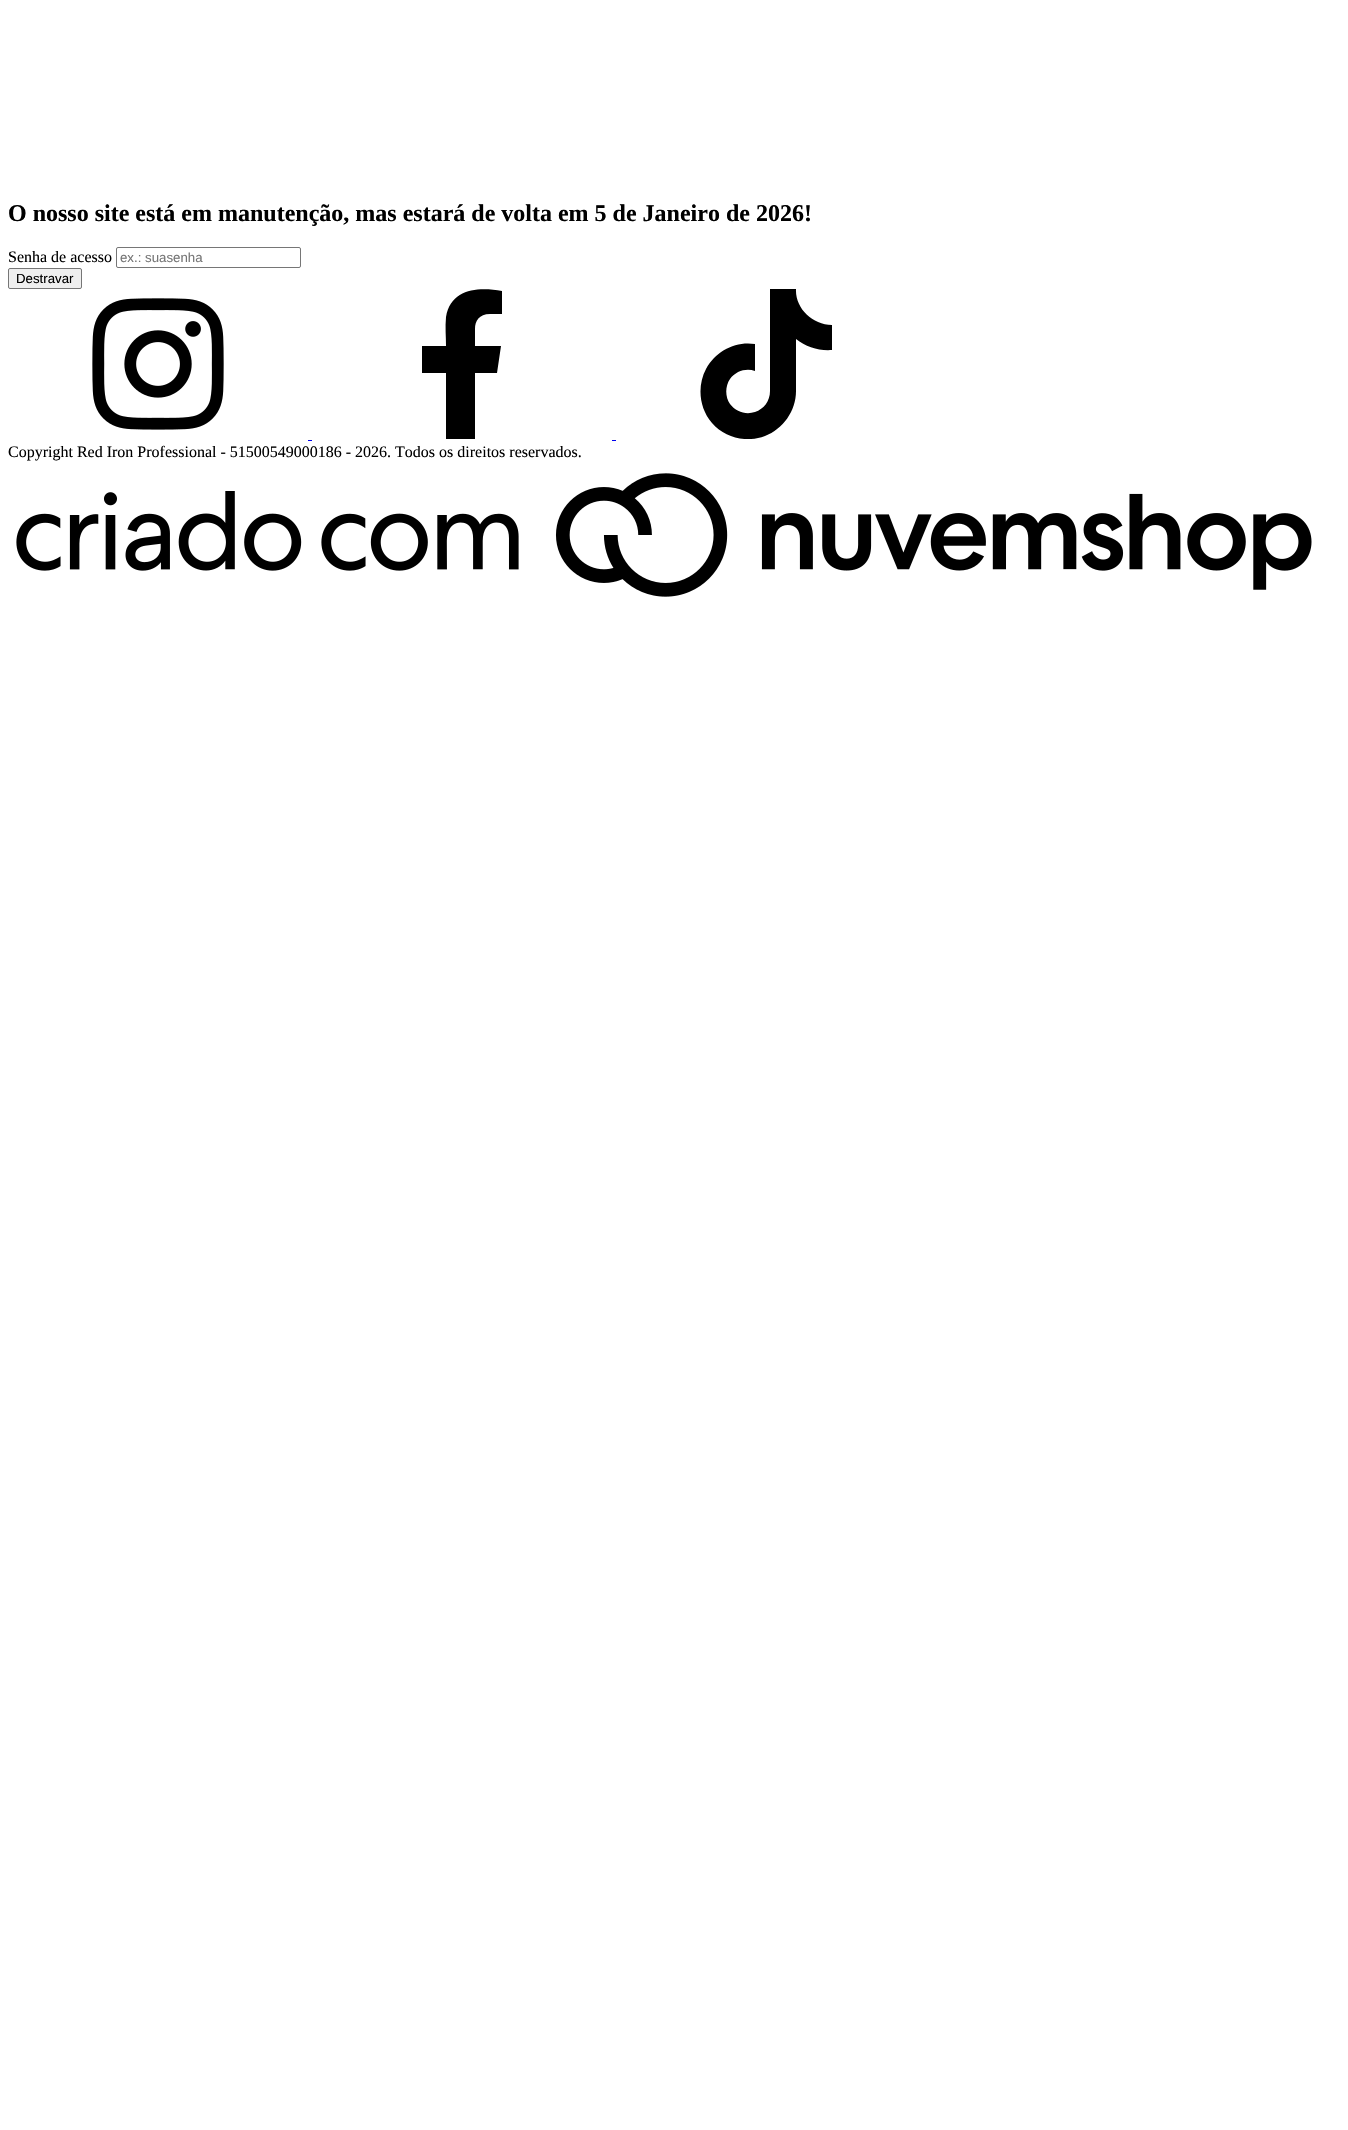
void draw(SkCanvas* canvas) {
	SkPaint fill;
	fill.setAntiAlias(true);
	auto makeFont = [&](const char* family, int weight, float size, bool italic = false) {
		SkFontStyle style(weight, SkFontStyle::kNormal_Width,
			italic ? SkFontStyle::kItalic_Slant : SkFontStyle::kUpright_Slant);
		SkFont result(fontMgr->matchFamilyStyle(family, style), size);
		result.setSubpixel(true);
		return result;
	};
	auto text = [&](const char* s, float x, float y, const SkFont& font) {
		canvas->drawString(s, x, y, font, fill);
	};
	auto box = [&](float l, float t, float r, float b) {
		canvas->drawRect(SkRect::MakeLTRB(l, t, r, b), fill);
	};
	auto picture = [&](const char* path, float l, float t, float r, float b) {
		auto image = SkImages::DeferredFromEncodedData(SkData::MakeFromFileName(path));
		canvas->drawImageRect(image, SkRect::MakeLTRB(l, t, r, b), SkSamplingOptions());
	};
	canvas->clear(0xFFFFFFFF);
	fill.setStyle(SkPaint::kStroke_Style);
	fill.setStrokeWidth(1);
	fill.setColor(0xFF767676);
	canvas->drawRoundRect(SkRect::MakeLTRB(116.5f, 247.5f, 300.5f, 267.5f), 1.5f, 1.5f, fill);
	fill.setStyle(SkPaint::kFill_Style);
	fill.setColor(0xFFEFEFEF);
	canvas->drawRoundRect(SkRect::MakeLTRB(8.5f, 268.5f, 81.5f, 288.5f), 1.5f, 1.5f, fill);
	fill.setStyle(SkPaint::kStroke_Style);
	fill.setColor(0xFF767676);
	canvas->drawRoundRect(SkRect::MakeLTRB(8.5f, 268.5f, 81.5f, 288.5f), 1.5f, 1.5f, fill);
	picture("image0.png", 92, 298, 224, 430);
	fill.setStyle(SkPaint::kFill_Style);
	fill.setColor(0xFF000000);
	canvas->drawPath(SkPathBuilder().moveTo(497, 373).lineTo(501, 346).lineTo(475, 346).lineTo(475, 329).cubicTo(475, 321, 479, 314, 490, 314).lineTo(502, 314).lineTo(502, 291).cubicTo(479, 287, 451, 288, 446, 317).cubicTo(445, 327, 446, 337, 446, 346).lineTo(422, 346).lineTo(422, 373).lineTo(446, 373).lineTo(446, 439).lineTo(475, 439).lineTo(475, 373).close().detach(), fill);
	canvas->save();
	canvas->clipRect(SkRect::MakeLTRB(616, 289, 916, 439));
	canvas->drawPath(SkPathBuilder().moveTo(832, 350).cubicTo(819, 351, 806, 347, 796, 339).lineTo(796, 391).cubicTo(796, 411, 783, 429, 765, 436).cubicTo(746, 443, 725, 438, 712, 423).cubicTo(699, 408, 697, 386, 706, 369).cubicTo(716, 351, 735, 341, 755, 344).lineTo(755, 371).cubicTo(746, 368, 736, 371, 730, 379).cubicTo(725, 386, 725, 397, 730, 404).cubicTo(736, 412, 746, 415, 755, 412).cubicTo(764, 409, 770, 401, 770, 391).lineTo(770, 289).lineTo(796, 289).cubicTo(795, 308, 812, 325, 832, 325).close().detach(), fill);
	canvas->restore();
	fill.setColor(0xFF0000EE);
	box(308, 440, 312, 441);
	box(612, 440, 616, 441);
	picture("image1.png", 16, 473, 1312, 597);
	auto font1 = makeFont("Liberation Serif", 700, 24);
	fill.setColor(0xFF000000);
	text("O nosso site está em manutenção, mas estará de volta em 5 de Janeiro de 2026!", 8, 221, font1);
	auto font2 = makeFont("Liberation Serif", 400, 16);
	text("Senha de acesso", 8, 262, font2);
	auto font3 = makeFont("Liberation Sans", 400, 13.25f);
	fill.setColor(0xFF757575);
	text("ex.: suasenha", 120, 262, font3);
	fill.setColor(0xFF000000);
	text("Destravar", 16, 283, font3);
	text("Copyright Red Iron Professional - 51500549000186 - 2026. Todos os direitos reservados.", 8, 457, font2);
}
